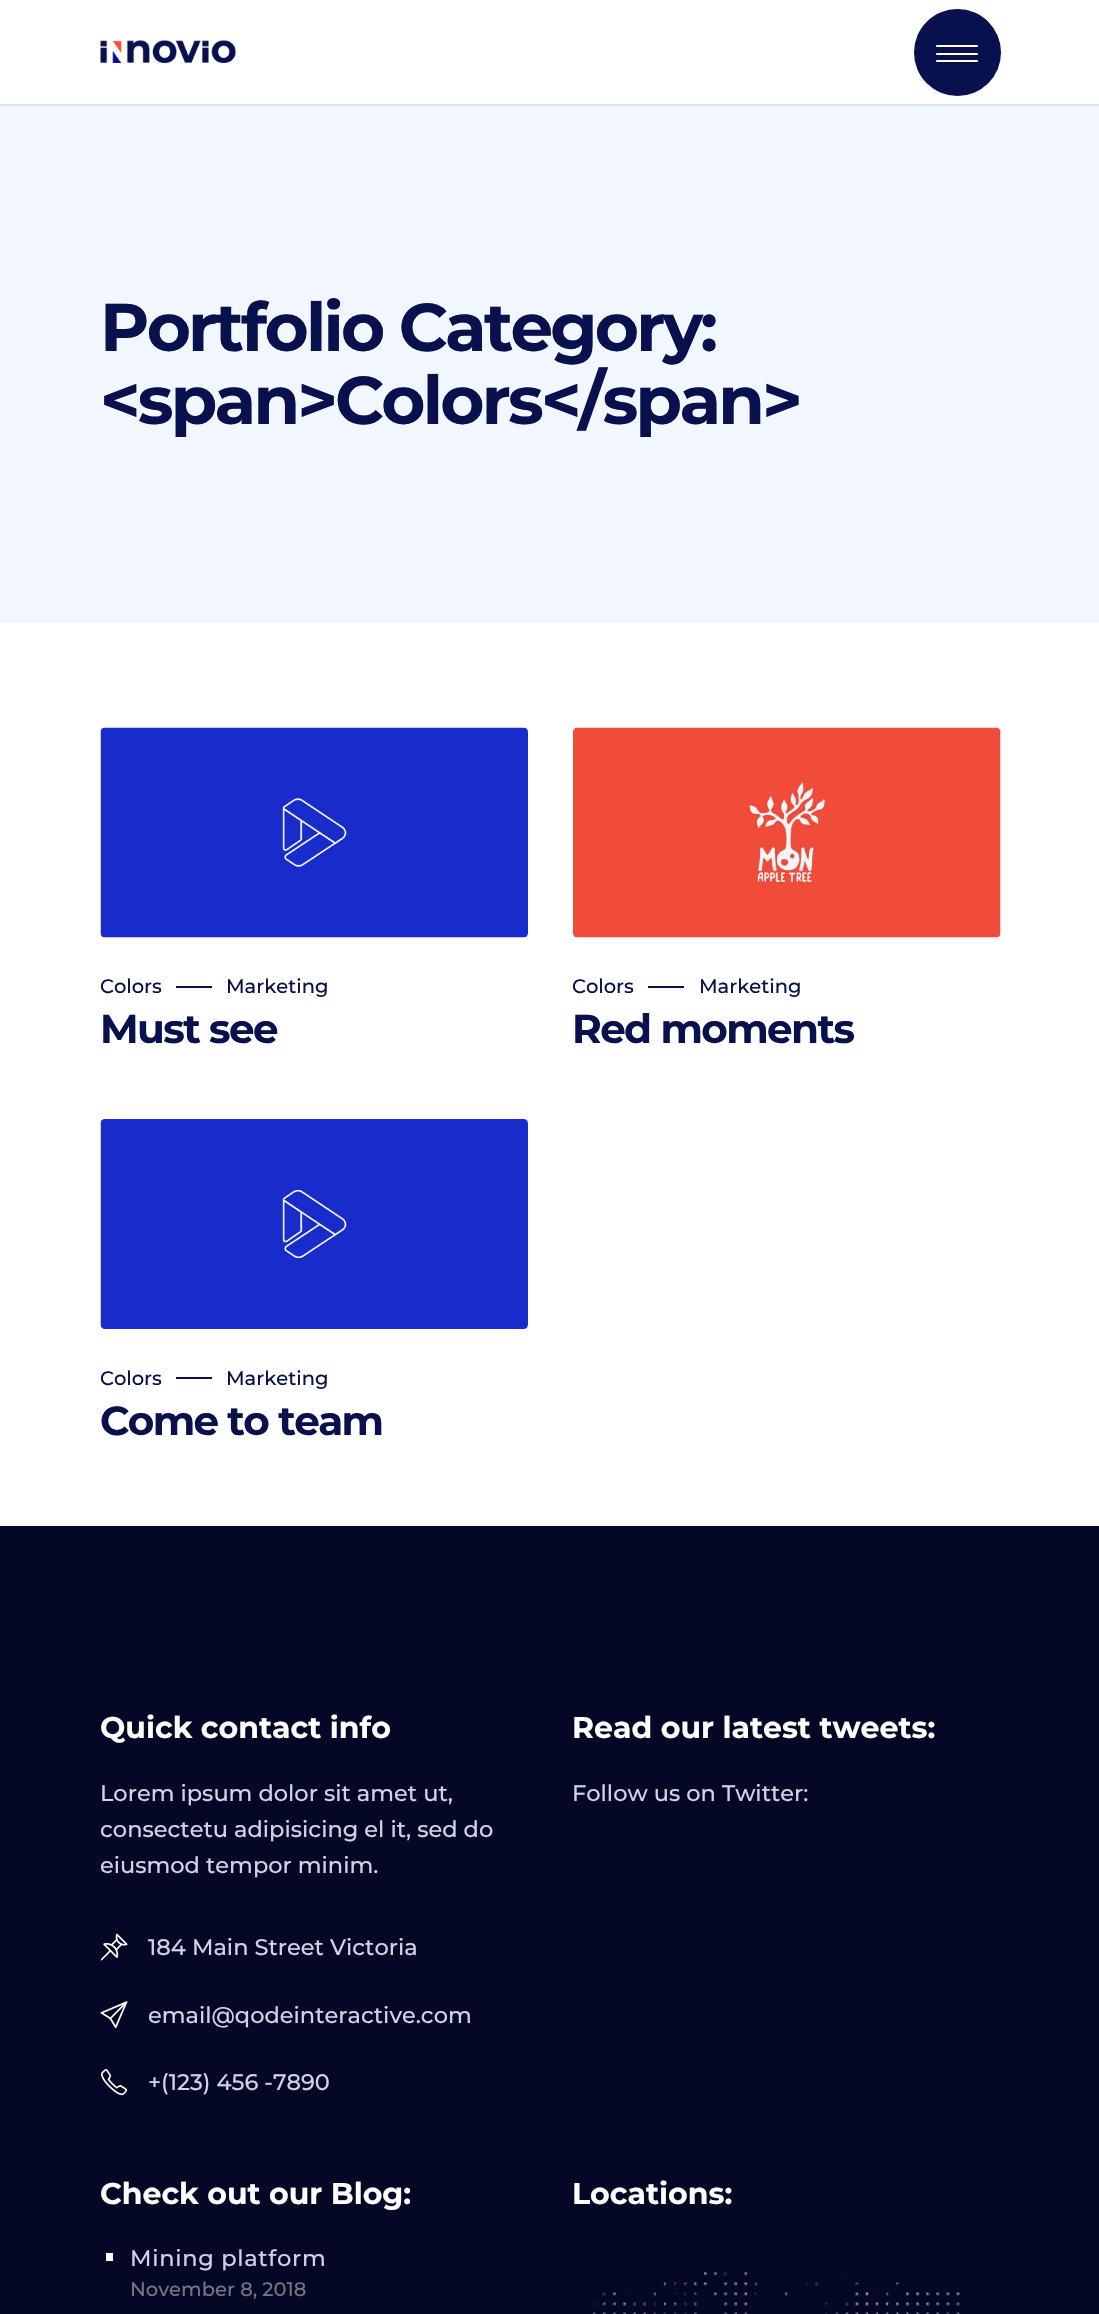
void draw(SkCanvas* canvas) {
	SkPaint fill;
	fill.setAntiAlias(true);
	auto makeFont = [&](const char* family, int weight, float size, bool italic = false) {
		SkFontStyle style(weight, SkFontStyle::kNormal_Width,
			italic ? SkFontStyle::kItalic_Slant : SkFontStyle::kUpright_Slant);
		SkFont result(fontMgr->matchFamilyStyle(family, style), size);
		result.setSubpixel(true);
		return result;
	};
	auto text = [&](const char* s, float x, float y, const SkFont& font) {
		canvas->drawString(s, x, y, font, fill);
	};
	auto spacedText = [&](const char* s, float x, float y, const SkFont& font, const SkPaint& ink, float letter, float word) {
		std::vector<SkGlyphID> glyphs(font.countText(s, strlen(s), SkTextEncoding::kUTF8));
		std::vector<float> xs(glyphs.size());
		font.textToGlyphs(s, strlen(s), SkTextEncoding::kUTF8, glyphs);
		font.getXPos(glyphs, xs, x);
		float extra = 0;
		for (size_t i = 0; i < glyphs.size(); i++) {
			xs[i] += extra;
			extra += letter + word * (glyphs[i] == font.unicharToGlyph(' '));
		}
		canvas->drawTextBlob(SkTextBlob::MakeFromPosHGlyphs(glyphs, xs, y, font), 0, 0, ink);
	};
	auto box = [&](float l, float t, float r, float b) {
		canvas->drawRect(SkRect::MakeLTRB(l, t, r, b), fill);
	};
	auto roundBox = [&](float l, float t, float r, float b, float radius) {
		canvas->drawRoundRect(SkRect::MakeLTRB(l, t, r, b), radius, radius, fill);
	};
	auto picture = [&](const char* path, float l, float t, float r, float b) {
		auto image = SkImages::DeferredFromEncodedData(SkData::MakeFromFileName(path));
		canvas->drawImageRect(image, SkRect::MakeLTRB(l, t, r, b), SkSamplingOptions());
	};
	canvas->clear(0xFFFFFFFF);
	fill.setColor(0xFFD7E3F7);
	box(0, 104, 1099, 106);
	picture("image0.png", 100, 40, 236, 63);
	fill.setColor(0xFF08104D);
	canvas->drawCircle(957.5f, 52.5f, 43.5f, fill);
	fill.setColor(0xFFFFFFFF);
	roundBox(936, 45, 978, 47, 1);
	roundBox(936, 53, 978, 55, 1);
	roundBox(936, 60, 978, 62, 1);
	fill.setColor(0xFFF2F6FF);
	box(0, 106, 1099, 623);
	picture("image1.png", 100, 727, 528, 938);
	fill.setColor(0xFF08104D);
	box(176, 986, 212, 988);
	picture("image2.png", 573, 727, 1001, 938);
	box(648, 986, 684, 988);
	picture("image3.png", 100, 1119, 528, 1329);
	box(176, 1377, 212, 1379);
	fill.setColor(0xFF040826);
	box(0, 1526, 1099, 2314);
	picture("image4.png", 100, 1933, 128, 1961);
	picture("image5.png", 100, 2001, 128, 2029);
	picture("image6.png", 100, 2069, 128, 2096);
	fill.setColor(0xFFFFFFFF);
	box(106, 2253, 113, 2261);
	picture("image7.png", 592, 2272, 960, 2314);
	auto font1 = makeFont("Montserrat", 700, 67.5f);
	fill.setColor(0xFF08104D);
	spacedText("Portfolio Category:", 100, 351, font1, fill, -2.75f, 0);
	spacedText("<span>Colors</span>", 100, 424, font1, fill, -2.75f, 0);
	auto font2 = makeFont("Montserrat", 500, 19.5f);
	text("Colors", 100, 993, font2);
	text("Marketing", 226, 993, font2);
	auto font3 = makeFont("Montserrat", 700, 40.5f);
	spacedText("Must see", 100, 1043, font3, fill, -1.6f, 0);
	text("Colors", 572, 993, font2);
	text("Marketing", 699, 993, font2);
	spacedText("Red moments", 572, 1043, font3, fill, -1.6f, 0);
	text("Colors", 100, 1385, font2);
	text("Marketing", 226, 1385, font2);
	spacedText("Come to team", 100, 1435, font3, fill, -1.6f, 0);
	auto font4 = makeFont("Montserrat", 700, 30);
	fill.setColor(0xFFFFFFFF);
	text("Quick contact info", 100, 1738, font4);
	auto font5 = makeFont("Montserrat", 500, 22.5f);
	fill.setColor(0xFFCFD3E5);
	text("Lorem ipsum dolor sit amet ut,", 100, 1801, font5);
	text("consectetu adipisicing el it, sed do", 100, 1837, font5);
	text("eiusmod tempor minim.", 100, 1873, font5);
	text("184 Main Street Victoria", 148, 1955, font5);
	text("email@qodeinteractive.com", 148, 2023, font5);
	text("+(123) 456 -7890", 148, 2090, font5);
	fill.setColor(0xFFFFFFFF);
	text("Read our latest tweets:", 572, 1738, font4);
	fill.setColor(0xFFCFD3E5);
	text("Follow us on Twitter:", 572, 1801, font5);
	fill.setColor(0xFFFFFFFF);
	text("Check out our Blog:", 100, 2204, font4);
	fill.setColor(0xFFCFD3E5);
	spacedText("Mining platform", 130, 2266, font5, fill, 0.7f, 0);
	fill.setColor(0xFF737580);
	text("November 8, 2018", 130, 2296, font2);
	fill.setColor(0xFFFFFFFF);
	text("Locations:", 572, 2204, font4);
}
